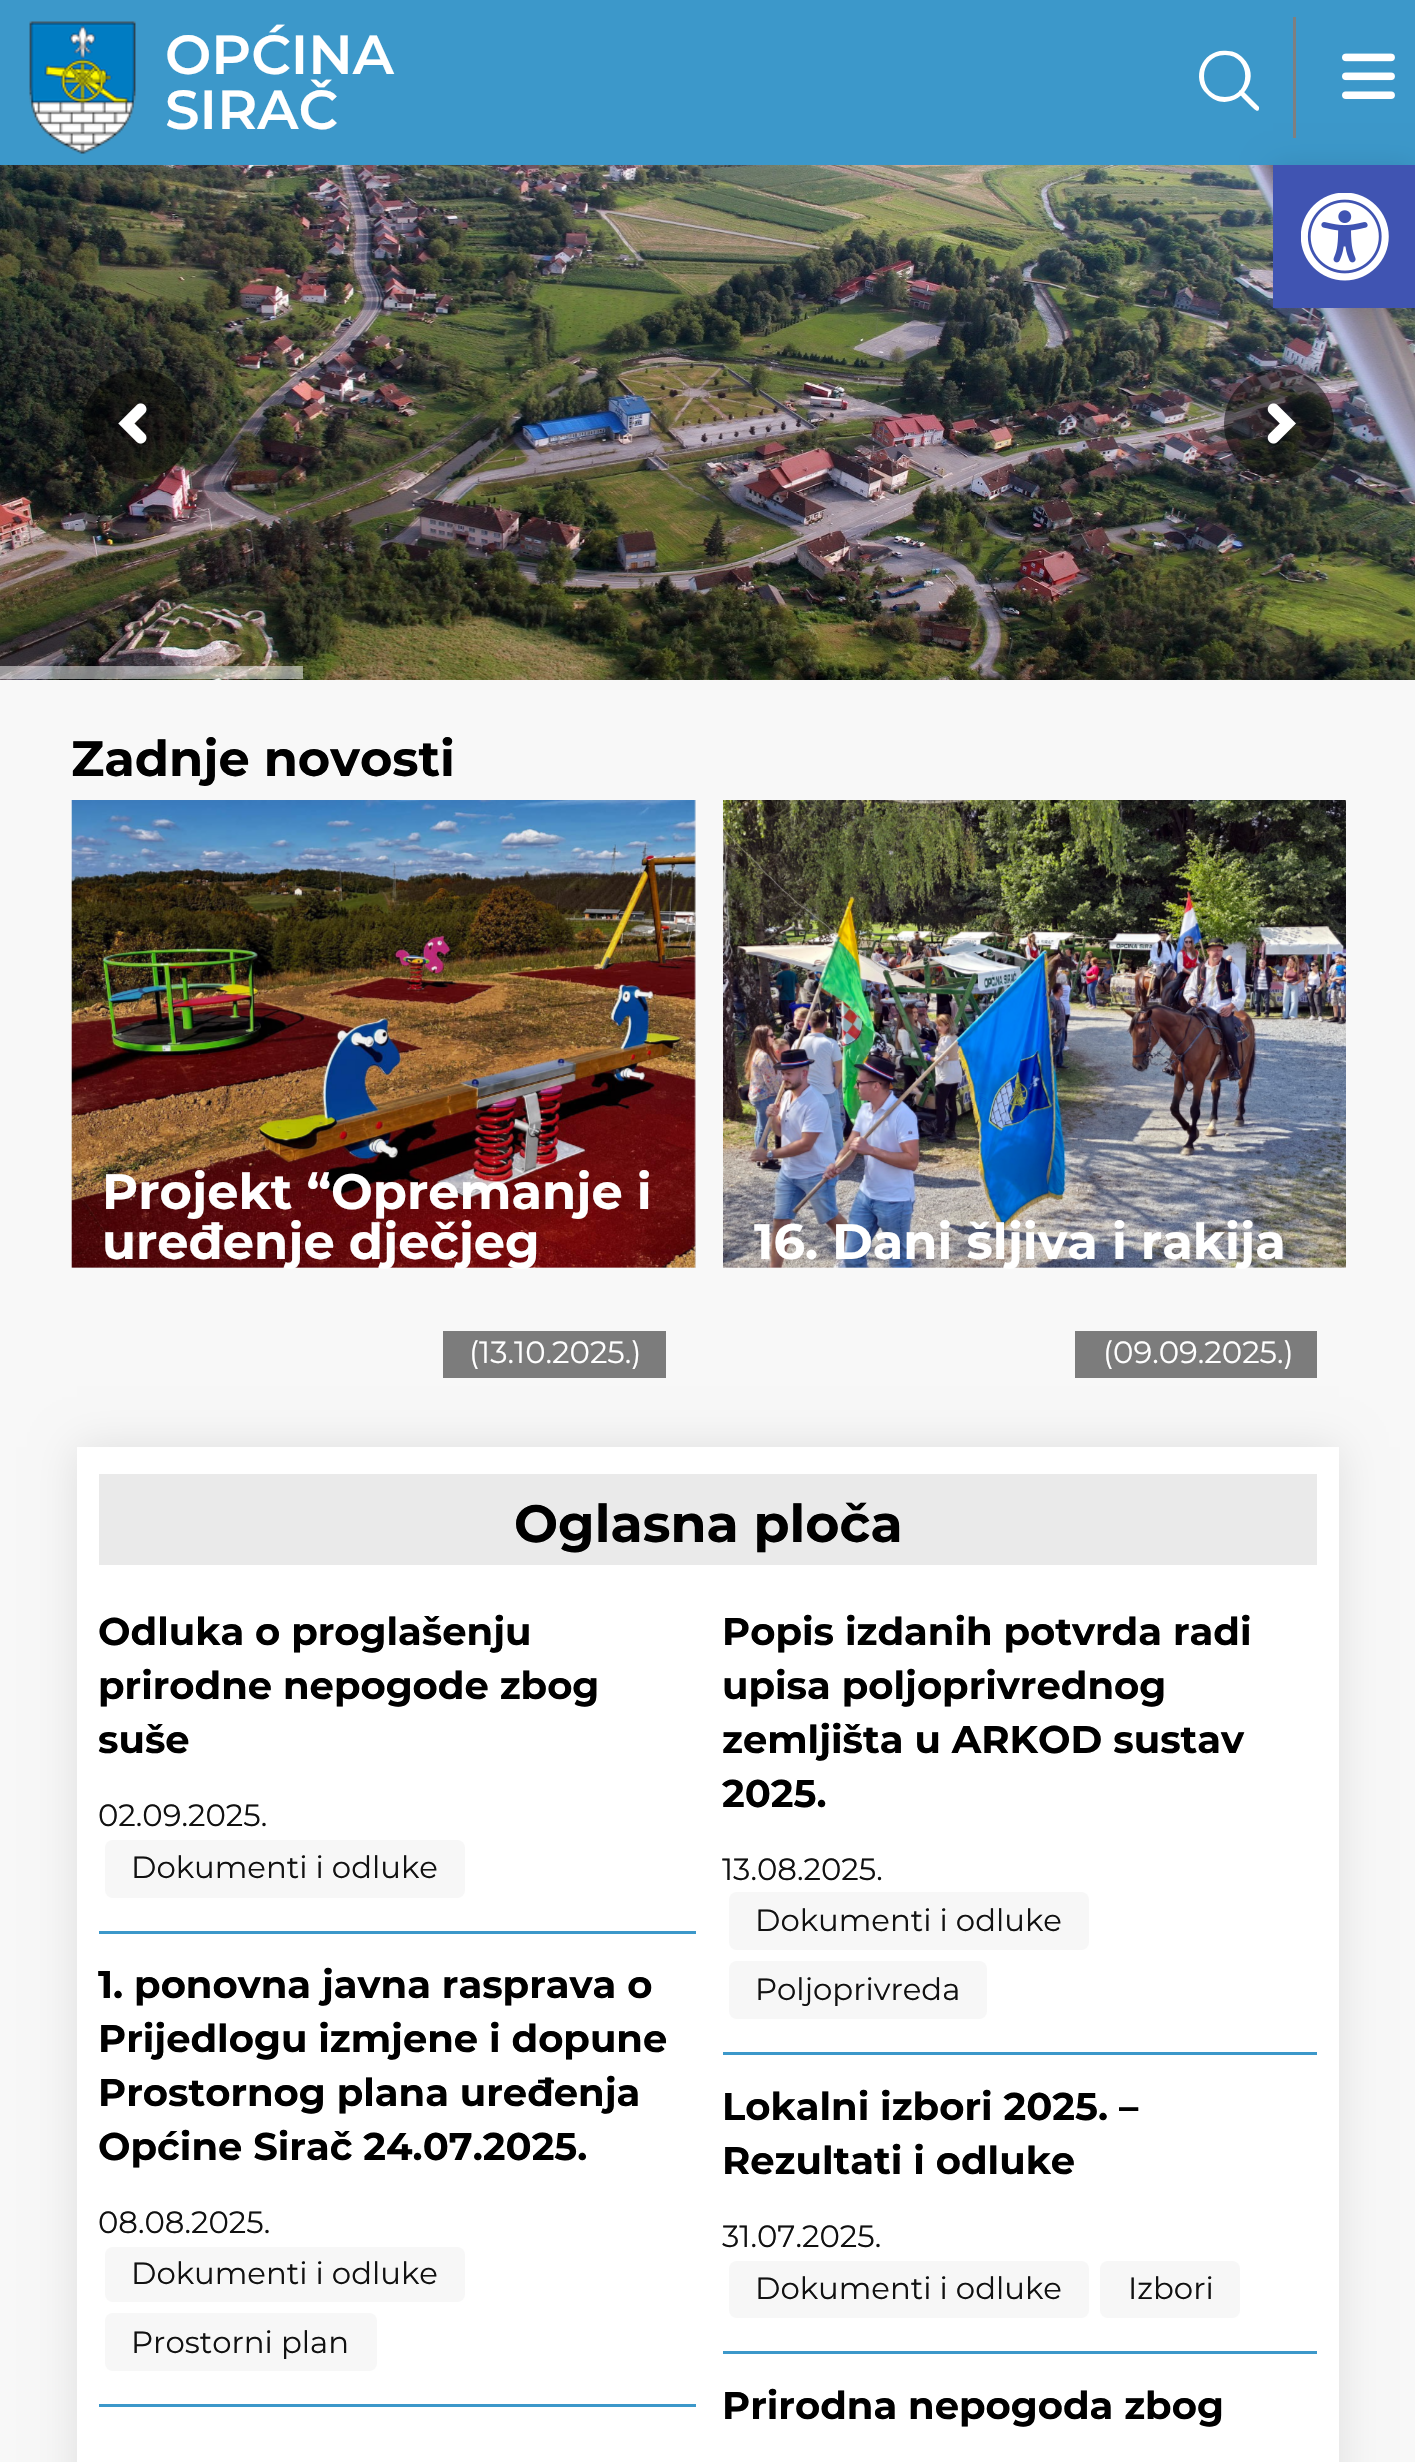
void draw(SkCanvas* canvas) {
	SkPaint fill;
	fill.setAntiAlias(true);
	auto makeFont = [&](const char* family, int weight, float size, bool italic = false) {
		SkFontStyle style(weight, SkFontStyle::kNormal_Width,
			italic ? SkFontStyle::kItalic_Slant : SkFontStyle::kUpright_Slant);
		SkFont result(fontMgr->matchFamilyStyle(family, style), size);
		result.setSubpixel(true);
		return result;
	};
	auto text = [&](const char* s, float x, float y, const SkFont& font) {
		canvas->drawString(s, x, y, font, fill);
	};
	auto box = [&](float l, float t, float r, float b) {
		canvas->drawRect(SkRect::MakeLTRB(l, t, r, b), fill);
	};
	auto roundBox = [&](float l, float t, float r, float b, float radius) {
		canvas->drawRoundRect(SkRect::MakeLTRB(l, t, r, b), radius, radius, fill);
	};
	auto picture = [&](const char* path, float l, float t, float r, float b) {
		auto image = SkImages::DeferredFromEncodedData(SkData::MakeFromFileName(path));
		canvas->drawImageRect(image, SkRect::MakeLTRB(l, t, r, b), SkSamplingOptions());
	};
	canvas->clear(0xFFF8F8F8);
	fill.setColor(0xFF3C98CA);
	box(0, 0, 1415, 165);
	picture("image0.png", 29, 21, 136, 154);
	fill.setColor(0xFFFFFFFF);
	canvas->drawPath(SkPathBuilder().moveTo(1243, 58).cubicTo(1239, 54, 1234, 51, 1228, 51).cubicTo(1204, 47, 1189, 77, 1207, 94).cubicTo(1230, 118, 1267, 82, 1243, 58).close().moveTo(1225, 97).cubicTo(1197, 97, 1197, 55, 1225, 55).cubicTo(1252, 55, 1252, 97, 1225, 97).close().moveTo(1259, 107).lineTo(1242, 90).cubicTo(1241, 90, 1239, 90, 1239, 91).cubicTo(1238, 93, 1241, 95, 1242, 97).lineTo(1247, 102).cubicTo(1253, 108, 1258, 114, 1259, 109).close().detach(), fill);
	fill.setColor(0xFF7F7F7F);
	box(1293, 17, 1296, 138);
	picture("image1.png", 1342, 53, 1395, 99);
	picture("image2.png", 0, 165, 1415, 680);
	fill.setColor(0x80000000);
	canvas->drawCircle(138, 424, 55, fill);
	picture("image3.png", 118, 403, 147, 444);
	canvas->drawCircle(1279, 424, 55, fill);
	picture("image4.png", 1267, 403, 1296, 444);
	fill.setColor(0x80FFFFFF);
	box(0, 666, 303, 679);
	fill.setColor(0xFFE8E8E8);
	box(72, 800, 696, 1268);
	picture("image5.png", 71, 800, 696, 1268);
	fill.setColor(0xFF7C7C7C);
	box(443, 1331, 666, 1378);
	fill.setColor(0xFFE8E8E8);
	box(723, 1267, 1345, 1268);
	picture("image6.png", 723, 800, 1346, 1268);
	fill.setColor(0xFF7C7C7C);
	box(1075, 1331, 1317, 1378);
	fill.setColor(0x1A000000);
	fill.setMaskFilter(SkMaskFilter::MakeBlur(kNormal_SkBlurStyle, 20.5f));
	canvas->drawRect(SkRect::MakeLTRB(77, 1447, 1339, 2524), fill);
	fill.setMaskFilter(nullptr);
	fill.setColor(0xFFFFFFFF);
	box(77, 1447, 1339, 2462);
	fill.setColor(0xFFEAEAEA);
	box(99, 1474, 1317, 1565);
	fill.setColor(0xFF3C98CA);
	box(99, 1931, 696, 1934);
	fill.setColor(0xFFF7F7F7);
	roundBox(105, 1840, 465, 1898, 8);
	fill.setColor(0xFF3C98CA);
	box(723, 2052, 1317, 2055);
	fill.setColor(0xFFF7F7F7);
	roundBox(729, 1892, 1089, 1950, 8);
	roundBox(729, 1961, 987, 2019, 8);
	fill.setColor(0xFF3C98CA);
	box(99, 2404, 696, 2407);
	fill.setColor(0xFFF7F7F7);
	roundBox(105, 2247, 465, 2302, 8);
	roundBox(105, 2313, 377, 2371, 8);
	fill.setColor(0xFF3C98CA);
	box(723, 2351, 1317, 2354);
	fill.setColor(0xFFF7F7F7);
	roundBox(729, 2261, 1089, 2318, 8);
	roundBox(1100, 2261, 1240, 2318, 8);
	fill.setColor(0x1A000000);
	fill.setMaskFilter(SkMaskFilter::MakeBlur(kNormal_SkBlurStyle, 14));
	canvas->drawRect(SkRect::MakeLTRB(1273, 165, 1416, 308), fill);
	fill.setMaskFilter(nullptr);
	fill.setColor(0xFF4054B2);
	box(1273, 165, 1415, 308);
	picture("image7.png", 1301, 193, 1389, 281);
	auto font1 = makeFont("Montserrat", 600, 55);
	fill.setColor(0xFFFFFFFF);
	text("OPĆINA", 165, 74, font1);
	text("SIRAČ", 165, 129, font1);
	auto font2 = makeFont("Montserrat", 700, 49.5f);
	fill.setColor(0xFF000000);
	text("Zadnje novosti", 71, 776, font2);
	fill.setColor(0xFFFFFFFF);
	text("Projekt “Opremanje i", 102, 1209, font2);
	text("uređenje dječjeg", 102, 1259, font2);
	auto font3 = makeFont("Montserrat", 400, 30.75f);
	text("(13.10.2025.)", 469, 1363, font3);
	text("16. Dani šljiva i rakija", 754, 1259, font2);
	text("(09.09.2025.)", 1103, 1363, font3);
	auto font4 = makeFont("Montserrat", 700, 52.25f);
	fill.setColor(0xFF000000);
	text("Oglasna ploča", 514, 1542, font4);
	auto font5 = makeFont("Montserrat", 700, 38.5f);
	text("Odluka o proglašenju", 98, 1645, font5);
	text("prirodne nepogode zbog", 98, 1699, font5);
	text("suše", 98, 1753, font5);
	fill.setColor(0xFF111111);
	text("02.09.2025.", 98, 1826, font3);
	text("Dokumenti i odluke", 131, 1878, font3);
	fill.setColor(0xFF000000);
	text("Popis izdanih potvrda radi", 722, 1645, font5);
	text("upisa poljoprivrednog", 722, 1699, font5);
	text("zemljišta u ARKOD sustav", 722, 1753, font5);
	text("2025.", 722, 1807, font5);
	fill.setColor(0xFF111111);
	text("13.08.2025.", 722, 1880, font3);
	text("Dokumenti i odluke", 755, 1931, font3);
	text("Poljoprivreda", 755, 2000, font3);
	fill.setColor(0xFF000000);
	text("1. ponovna javna rasprava o", 98, 1998, font5);
	text("Prijedlogu izmjene i dopune", 98, 2052, font5);
	text("Prostornog plana uređenja", 98, 2106, font5);
	text("Općine Sirač 24.07.2025.", 98, 2160, font5);
	fill.setColor(0xFF111111);
	text("08.08.2025.", 98, 2233, font3);
	text("Dokumenti i odluke", 131, 2284, font3);
	text("Prostorni plan", 131, 2353, font3);
	fill.setColor(0xFF000000);
	text("Lokalni izbori 2025. –", 722, 2120, font5);
	text("Rezultati i odluke", 722, 2174, font5);
	fill.setColor(0xFF111111);
	text("31.07.2025.", 722, 2247, font3);
	text("Dokumenti i odluke", 755, 2299, font3);
	text("Izbori", 1128, 2299, font3);
	fill.setColor(0xFF000000);
	text("Prirodna nepogoda zbog", 722, 2419, font5);
}
